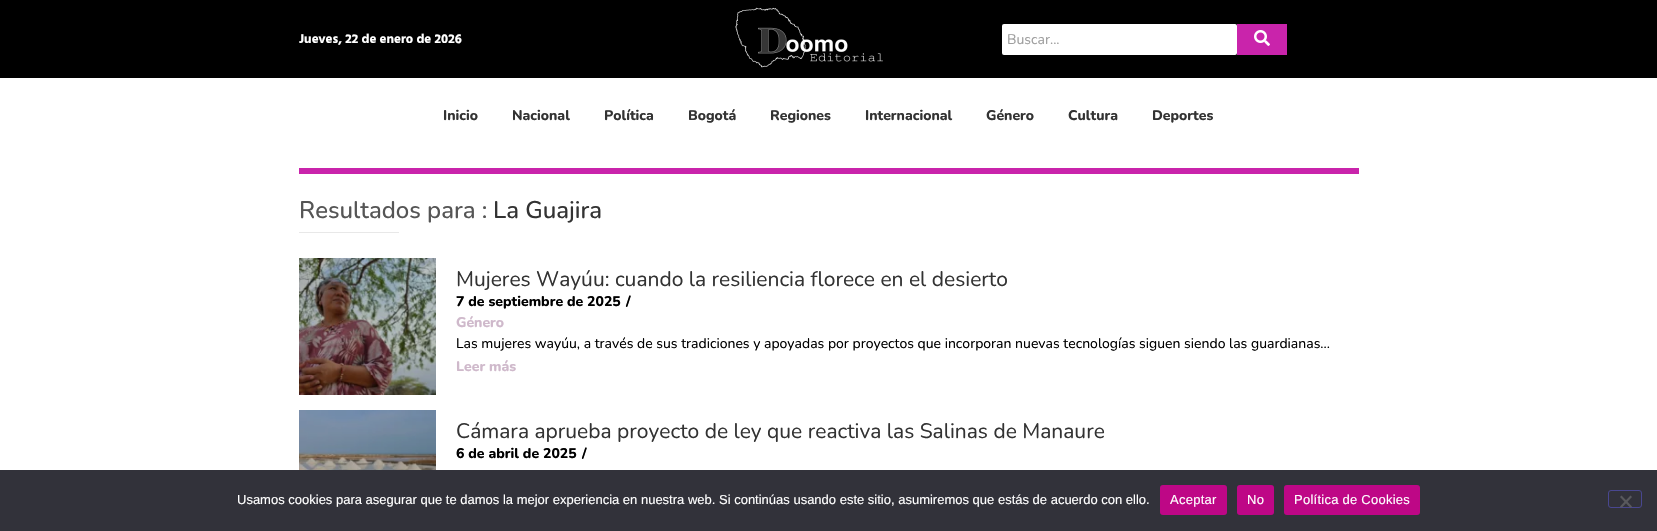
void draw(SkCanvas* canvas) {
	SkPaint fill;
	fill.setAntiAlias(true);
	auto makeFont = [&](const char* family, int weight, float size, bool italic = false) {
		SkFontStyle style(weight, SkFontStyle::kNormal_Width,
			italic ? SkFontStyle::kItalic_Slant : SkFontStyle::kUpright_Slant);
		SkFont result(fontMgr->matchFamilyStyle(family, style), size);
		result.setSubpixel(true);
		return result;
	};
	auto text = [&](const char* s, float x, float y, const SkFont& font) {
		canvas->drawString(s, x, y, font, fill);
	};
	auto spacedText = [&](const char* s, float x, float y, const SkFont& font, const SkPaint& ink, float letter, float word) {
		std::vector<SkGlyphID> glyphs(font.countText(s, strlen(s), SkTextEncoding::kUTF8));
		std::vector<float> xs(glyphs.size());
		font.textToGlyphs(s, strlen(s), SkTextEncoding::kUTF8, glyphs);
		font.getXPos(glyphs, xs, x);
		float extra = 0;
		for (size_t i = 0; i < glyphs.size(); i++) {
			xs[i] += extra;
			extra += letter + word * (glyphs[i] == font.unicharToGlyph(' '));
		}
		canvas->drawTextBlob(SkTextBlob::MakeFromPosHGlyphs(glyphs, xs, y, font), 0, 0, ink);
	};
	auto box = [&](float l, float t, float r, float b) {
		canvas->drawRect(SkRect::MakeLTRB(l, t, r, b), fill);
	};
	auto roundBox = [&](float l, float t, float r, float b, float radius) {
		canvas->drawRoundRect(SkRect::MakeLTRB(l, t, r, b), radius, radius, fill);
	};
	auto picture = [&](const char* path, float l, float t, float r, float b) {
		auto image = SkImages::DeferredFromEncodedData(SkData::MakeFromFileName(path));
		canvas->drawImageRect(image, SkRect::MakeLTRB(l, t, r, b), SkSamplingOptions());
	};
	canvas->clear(0xFFFFFFFF);
	fill.setColor(0xFF000000);
	box(0, 0, 1657, 78);
	picture("image0.png", 735, 7, 883, 68);
	fill.setColor(0xFFFFFFFF);
	roundBox(1002, 24, 1237, 55, 2);
	fill.setColor(0xFFC924AB);
	box(1237, 24, 1287, 55);
	picture("image1.png", 1254, 30, 1270, 46);
	box(299, 168, 1359, 174);
	fill.setColor(0xFFE8E8E8);
	box(299, 232, 399, 233);
	picture("image2.png", 299, 258, 436, 395);
	picture("image3.png", 299, 410, 436, 470);
	fill.setColor(0xFF32323A);
	box(0, 470, 1657, 531);
	fill.setColor(0xFFBE0786);
	roundBox(1160, 485, 1227, 515, 3);
	roundBox(1237, 485, 1274, 515, 3);
	roundBox(1284, 485, 1420, 515, 3);
	fill.setStyle(SkPaint::kStroke_Style);
	fill.setStrokeWidth(1);
	fill.setColor(0xFF494790);
	canvas->drawRoundRect(SkRect::MakeLTRB(1608.5f, 490.5f, 1641.5f, 507.5f), 2.5f, 2.5f, fill);
	fill.setStyle(SkPaint::kFill_Style);
	fill.setColor(0xFF59595D);
	canvas->drawPath(SkPathBuilder().moveTo(1630.5f, 495.5f).lineTo(1632, 497).lineTo(1621.5f, 508).lineTo(1620, 506.5f).close().detach(), fill);
	canvas->drawPath(SkPathBuilder().moveTo(1620, 497).lineTo(1621.5f, 495.5f).lineTo(1632, 506.5f).lineTo(1630.5f, 508).close().detach(), fill);
	auto font1 = makeFont("Hind", 700, 13);
	fill.setColor(0xFFFFFFFF);
	text("Jueves, 22 de enero de 2026", 299, 43, font1);
	auto font2 = makeFont("Nunito", 400, 14);
	fill.setColor(0xFF9E9E9E);
	text("Buscar...", 1007, 44, font2);
	auto font3 = makeFont("Nunito", 800, 14);
	fill.setColor(0xFF333333);
	text("Inicio", 443, 120, font3);
	text("Nacional", 512, 120, font3);
	text("Política", 604, 120, font3);
	text("Bogotá", 688, 120, font3);
	text("Regiones", 770, 120, font3);
	text("Internacional", 865, 120, font3);
	text("Género", 986, 120, font3);
	text("Cultura", 1068, 120, font3);
	text("Deportes", 1152, 120, font3);
	auto font4 = makeFont("Nunito", 500, 24);
	fill.setColor(0xFF555555);
	text("Resultados para :", 299, 218, font4);
	fill.setColor(0xFF333333);
	text("La Guajira", 493, 218, font4);
	auto font5 = makeFont("Nunito", 400, 21);
	text("Mujeres Wayúu: cuando la resiliencia florece en el desierto", 456, 286, font5);
	fill.setColor(0xFF000000);
	text("7 de septiembre de 2025", 456, 306, font3);
	text("/", 626, 306, font3);
	fill.setColor(0xFFCFB9CB);
	text("Género", 456, 327, font3);
	fill.setColor(0xFF000000);
	text("Las mujeres wayúu, a través de sus tradiciones y apoyadas por proyectos que incorporan nuevas tecnologías siguen siendo las guardianas...", 456, 348, font2);
	fill.setColor(0xFFCFB9CB);
	text("Leer más", 456, 371, font3);
	fill.setColor(0xFF333333);
	text("Cámara aprueba proyecto de ley que reactiva las Salinas de Manaure", 456, 438, font5);
	fill.setColor(0xFF000000);
	text("6 de abril de 2025", 456, 458, font3);
	text("/", 582, 458, font3);
	auto font6 = makeFont("Liberation Sans", 400, 13);
	fill.setColor(0xFFFFFFFF);
	text("Usamos cookies para asegurar que te damos la mejor experiencia en nuestra web. Si continúas usando este sitio, asumiremos que estás de acuerdo con ello.", 237, 504, font6);
	spacedText("Aceptar", 1170, 504, font6, fill, 0.25f, 0);
	spacedText("No", 1247, 504, font6, fill, 0.25f, 0);
	spacedText("Política de Cookies", 1294, 504, font6, fill, 0.25f, 0);
}
